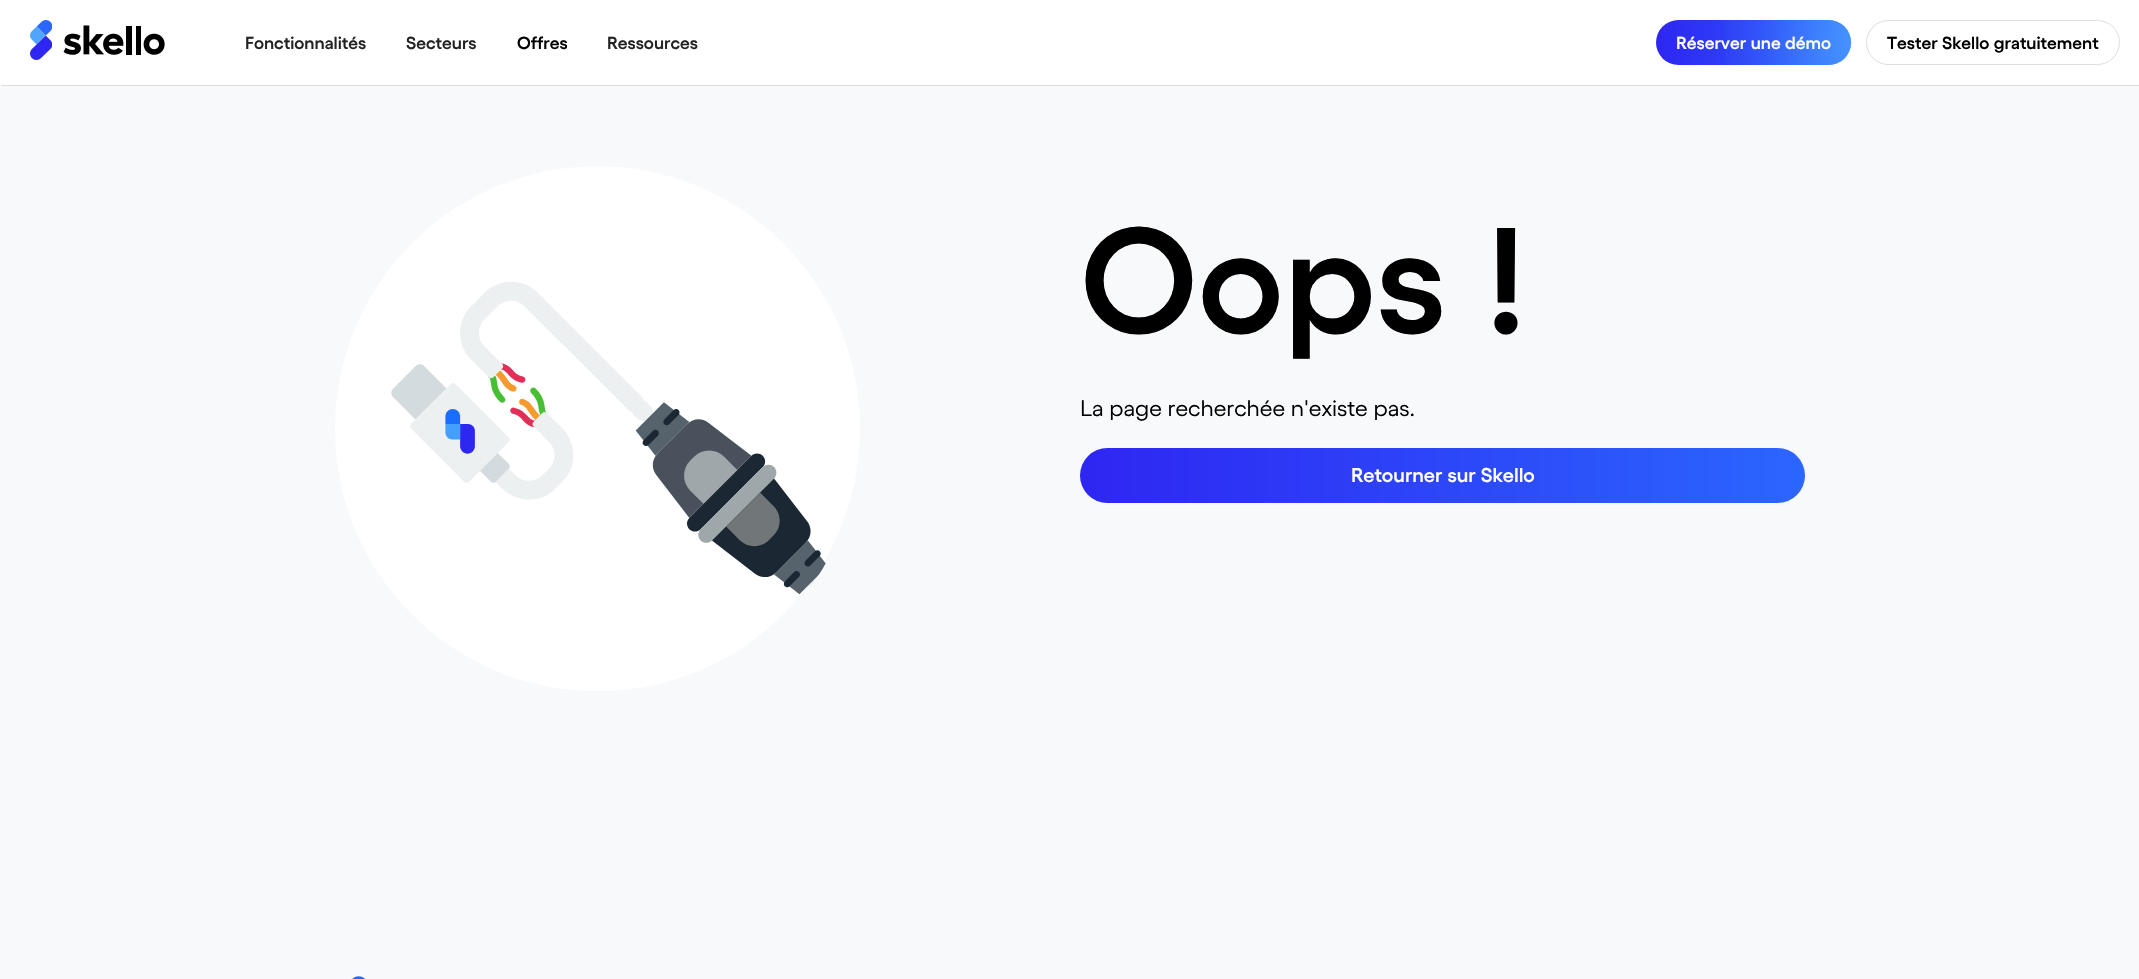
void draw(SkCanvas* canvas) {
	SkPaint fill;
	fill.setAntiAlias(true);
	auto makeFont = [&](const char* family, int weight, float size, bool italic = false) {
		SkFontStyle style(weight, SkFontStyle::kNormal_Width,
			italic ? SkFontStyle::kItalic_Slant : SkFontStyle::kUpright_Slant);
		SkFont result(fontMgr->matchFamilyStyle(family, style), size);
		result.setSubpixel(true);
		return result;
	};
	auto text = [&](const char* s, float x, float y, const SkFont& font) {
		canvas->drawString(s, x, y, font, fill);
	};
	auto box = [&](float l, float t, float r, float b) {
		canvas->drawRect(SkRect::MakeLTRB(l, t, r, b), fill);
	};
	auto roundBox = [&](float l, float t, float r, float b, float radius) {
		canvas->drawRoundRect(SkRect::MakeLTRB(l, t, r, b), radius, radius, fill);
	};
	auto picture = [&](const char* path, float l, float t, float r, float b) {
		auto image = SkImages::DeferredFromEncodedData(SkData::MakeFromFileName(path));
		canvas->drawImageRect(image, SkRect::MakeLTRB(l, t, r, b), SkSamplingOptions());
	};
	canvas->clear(0xFFF7F9FB);
	fill.setColor(0xFFFFFFFF);
	roundBox(0, 0, 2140, 86, 1);
	fill.setColor(0xFFDEDEDE);
	box(1, 85, 2139, 86);
	picture("image0.png", 30, 20, 165, 60);
	{
		const SkColor colors[] = {0xFF2E26F2, 0xFF2B66FE};
		const float stops[] = {0, 1};
		const SkPoint ends[] = {{1656, 43}, {1851, 42}};
		fill.setShader(SkGradientShader::MakeLinear(ends, colors, stops, 2, SkTileMode::kClamp));
		fill.setAlpha(255);
	}
	roundBox(1656, 20, 1851, 65, 22.5f);
	picture("image1.png", 1725, 20, 1852, 65);
	fill.setStyle(SkPaint::kStroke_Style);
	fill.setStrokeWidth(1);
	fill.setShader(nullptr);
	fill.setColor(0xFFDDDDDD);
	canvas->drawRoundRect(SkRect::MakeLTRB(1866.5f, 20.5f, 2119.5f, 64.5f), 22, 22, fill);
	picture("image2.png", 335, 166, 860, 691);
	fill.setStyle(SkPaint::kFill_Style);
	{
		const SkColor colors[] = {0xFF2E26F2, 0xFF2B66FE};
		const float stops[] = {0, 1};
		const SkPoint ends[] = {{1080, 475}, {1805, 475}};
		fill.setShader(SkGradientShader::MakeLinear(ends, colors, stops, 2, SkTileMode::kClamp));
		fill.setAlpha(255);
	}
	roundBox(1080, 448, 1805, 503, 27.5f);
	picture("image3.png", 351, 976, 366, 979);
	auto font1 = makeFont("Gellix", 600, 17.5f);
	fill.setShader(nullptr);
	fill.setColor(0xFF222222);
	text("Fonctionnalités", 245, 49, font1);
	text("Secteurs", 406, 49, font1);
	fill.setColor(0xFF000000);
	text("Offres", 517, 49, font1);
	fill.setColor(0xFF222222);
	text("Ressources", 607, 49, font1);
	fill.setColor(0xFFFFFFFF);
	text("Réserver une démo", 1676, 49, font1);
	fill.setColor(0xFF000000);
	text("Tester Skello gratuitement", 1887, 49, font1);
	auto font2 = makeFont("Gellix", 600, 150);
	text("Oops !", 1080, 333, font2);
	auto font3 = makeFont("Gellix", 400, 22.5f);
	text("La page recherchée n'existe pas.", 1080, 416, font3);
	auto font4 = makeFont("Gellix", 600, 20);
	fill.setColor(0xFFFFFFFF);
	text("Retourner sur Skello", 1351, 482, font4);
}
